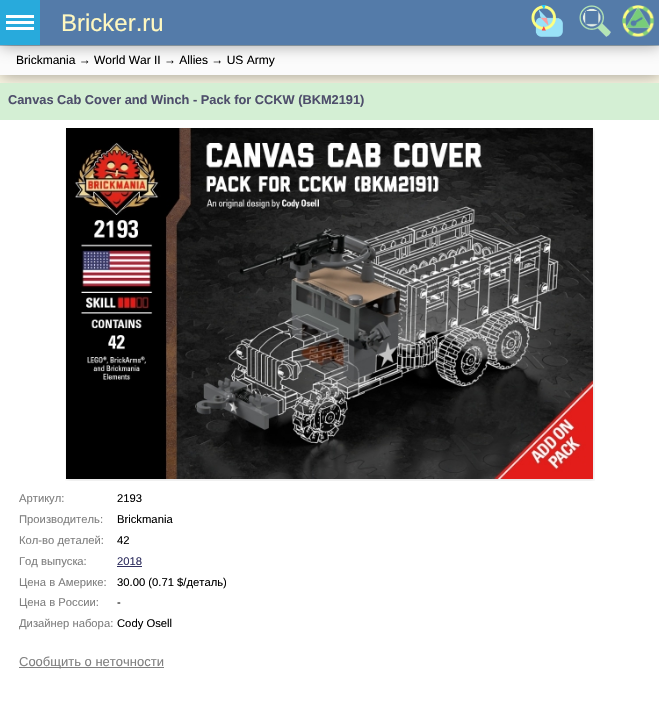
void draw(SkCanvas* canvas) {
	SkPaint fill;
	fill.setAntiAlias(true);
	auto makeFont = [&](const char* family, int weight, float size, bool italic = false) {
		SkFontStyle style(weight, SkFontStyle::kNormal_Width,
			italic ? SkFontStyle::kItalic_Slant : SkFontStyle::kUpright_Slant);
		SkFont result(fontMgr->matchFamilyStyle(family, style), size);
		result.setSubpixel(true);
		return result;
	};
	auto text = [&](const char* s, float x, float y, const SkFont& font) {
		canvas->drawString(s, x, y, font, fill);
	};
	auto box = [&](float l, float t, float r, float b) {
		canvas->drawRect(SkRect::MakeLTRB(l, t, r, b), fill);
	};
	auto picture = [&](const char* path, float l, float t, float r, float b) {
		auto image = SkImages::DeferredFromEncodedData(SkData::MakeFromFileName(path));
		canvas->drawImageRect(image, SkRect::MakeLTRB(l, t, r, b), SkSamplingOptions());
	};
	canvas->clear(0xFFBBD0DD);
	fill.setColor(0xFFFAF5E3);
	box(0, 75, 659, 83);
	fill.setColor(0x59000000);
	fill.setMaskFilter(SkMaskFilter::MakeBlur(kNormal_SkBlurStyle, 7.5f));
	canvas->drawRect(SkRect::MakeLTRB(1, 47, 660, 76), fill);
	fill.setMaskFilter(nullptr);
	fill.setColor(0xFFFBFBFB);
	box(0, 46, 659, 75);
	fill.setColor(0x59000000);
	fill.setMaskFilter(SkMaskFilter::MakeBlur(kNormal_SkBlurStyle, 7.5f));
	canvas->drawRect(SkRect::MakeLTRB(1, 1, 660, 46), fill);
	fill.setMaskFilter(nullptr);
	fill.setColor(0xFF547BA9);
	box(40, 0, 659, 45);
	fill.setColor(0xFF28AADC);
	box(0, 0, 40, 45);
	fill.setColor(0xFFFFFFFF);
	box(6, 21, 34, 24);
	box(6, 15, 34, 18);
	box(6, 27, 34, 30);
	picture("image0.png", 531, 5, 563, 37);
	picture("image1.png", 579, 5, 611, 37);
	picture("image2.png", 622, 5, 655, 37);
	box(0, 120, 659, 701);
	fill.setColor(0xFFD4EFD4);
	box(0, 83, 659, 120);
	picture("image3.png", 65, 128, 595, 481);
	fill.setColor(0xFF303060);
	box(117, 566, 142, 567);
	fill.setColor(0xFF808080);
	box(19, 667, 164, 668);
	auto font1 = makeFont("Liberation Sans", 400, 24);
	fill.setColor(0xFFFFF8C0);
	text("Bricker.ru", 61, 31, font1);
	auto font2 = makeFont("Liberation Sans", 400, 12);
	fill.setColor(0xFF000000);
	text("Brickmania → World War II → Allies → US Army", 16, 64, font2);
	auto font3 = makeFont("Liberation Sans", 700, 12.8f);
	fill.setColor(0xFF4E4E6B);
	text("Canvas Cab Cover and Winch - Pack for CCKW (BKM2191)", 8, 104, font3);
	auto font4 = makeFont("Liberation Sans", 400, 11.25f);
	fill.setColor(0xFF808080);
	text("Артикул:", 19, 502, font4);
	fill.setColor(0xFF000000);
	text("2193", 117, 502, font4);
	fill.setColor(0xFF808080);
	text("Производитель:", 19, 523, font4);
	fill.setColor(0xFF000000);
	text("Brickmania", 117, 523, font4);
	fill.setColor(0xFF808080);
	text("Кол-во деталей:", 19, 544, font4);
	fill.setColor(0xFF000000);
	text("42", 117, 544, font4);
	fill.setColor(0xFF808080);
	text("Год выпуска:", 19, 565, font4);
	fill.setColor(0xFF303060);
	text("2018", 117, 565, font4);
	fill.setColor(0xFF808080);
	text("Цена в Америке:", 19, 586, font4);
	fill.setColor(0xFF000000);
	text("30.00 (0.71 $/деталь)", 117, 586, font4);
	fill.setColor(0xFF808080);
	text("Цена в России:", 19, 606, font4);
	fill.setColor(0xFF000000);
	text("-", 117, 606, font4);
	fill.setColor(0xFF808080);
	text("Дизайнер набора:", 19, 627, font4);
	fill.setColor(0xFF000000);
	text("Cody Osell", 117, 627, font4);
	auto font5 = makeFont("Liberation Sans", 400, 13);
	fill.setColor(0xFF808080);
	text("Сообщить о неточности", 19, 666, font5);
}
